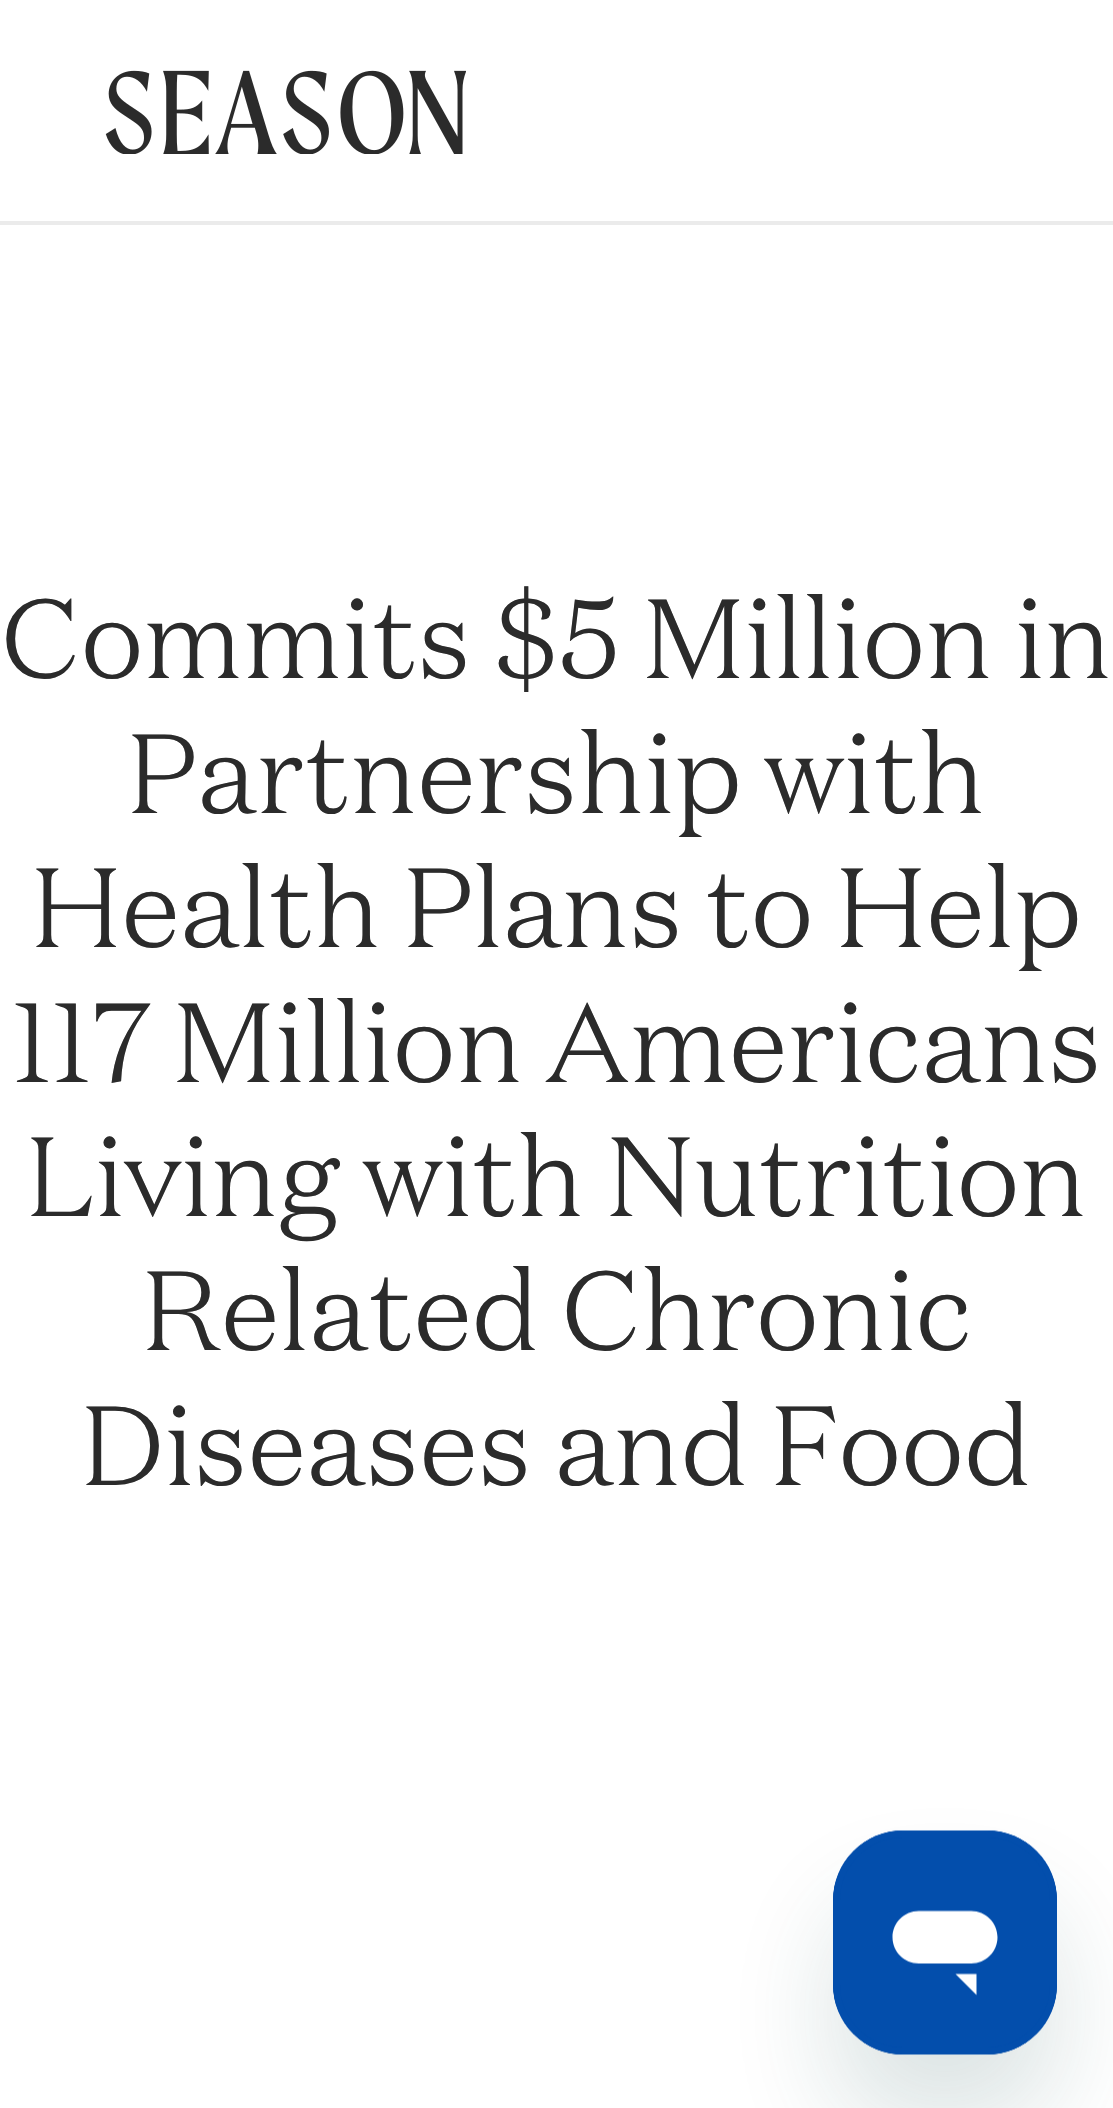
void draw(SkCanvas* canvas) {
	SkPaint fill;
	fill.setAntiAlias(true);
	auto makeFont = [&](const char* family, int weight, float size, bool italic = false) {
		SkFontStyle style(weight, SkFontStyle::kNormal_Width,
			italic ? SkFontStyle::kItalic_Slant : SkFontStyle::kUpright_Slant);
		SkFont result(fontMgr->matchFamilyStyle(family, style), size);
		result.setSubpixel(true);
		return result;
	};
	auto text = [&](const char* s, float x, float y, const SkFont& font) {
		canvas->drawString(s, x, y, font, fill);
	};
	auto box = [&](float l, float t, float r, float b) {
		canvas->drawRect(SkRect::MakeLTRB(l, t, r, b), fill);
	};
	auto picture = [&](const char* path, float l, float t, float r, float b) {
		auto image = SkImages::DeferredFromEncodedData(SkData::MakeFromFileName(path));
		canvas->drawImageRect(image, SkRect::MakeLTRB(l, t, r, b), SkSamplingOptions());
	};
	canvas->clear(0xFFFFFFFF);
	picture("image0.png", 105, 70, 466, 154);
	fill.setColor(0xFFEBEBEB);
	box(0, 221, 1113, 225);
	fill.setColor(0x2617494D);
	fill.setMaskFilter(SkMaskFilter::MakeBlur(kNormal_SkBlurStyle, 52.5f));
	canvas->drawRoundRect(SkRect::MakeLTRB(833, 1901, 1057, 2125), 70, 70, fill);
	fill.setMaskFilter(nullptr);
	picture("image1.png", 833, 1830, 1057, 2055);
	auto font1 = makeFont("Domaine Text", 300, 112);
	fill.setColor(0xFF2B2B2B);
	text("Commits $5 Million in", 1, 678, font1);
	text("Partnership with", 127, 813, font1);
	text("Health Plans to Help", 31, 947, font1);
	text("117 Million Americans", 12, 1082, font1);
	text("Living with Nutrition", 26, 1216, font1);
	text("Related Chronic", 142, 1350, font1);
	text("Diseases and Food", 81, 1485, font1);
}
